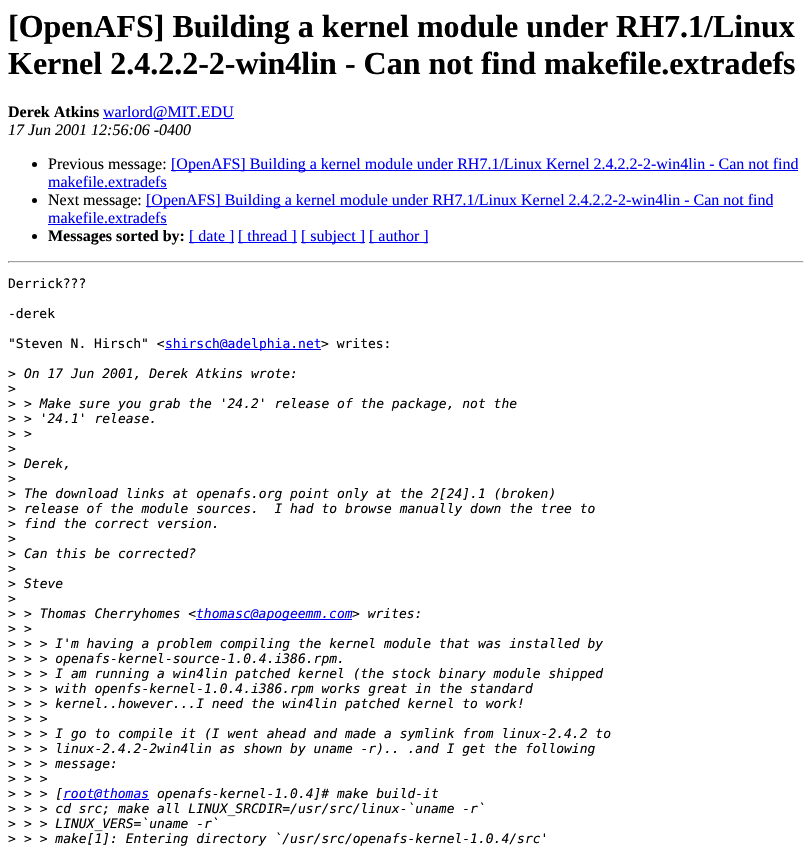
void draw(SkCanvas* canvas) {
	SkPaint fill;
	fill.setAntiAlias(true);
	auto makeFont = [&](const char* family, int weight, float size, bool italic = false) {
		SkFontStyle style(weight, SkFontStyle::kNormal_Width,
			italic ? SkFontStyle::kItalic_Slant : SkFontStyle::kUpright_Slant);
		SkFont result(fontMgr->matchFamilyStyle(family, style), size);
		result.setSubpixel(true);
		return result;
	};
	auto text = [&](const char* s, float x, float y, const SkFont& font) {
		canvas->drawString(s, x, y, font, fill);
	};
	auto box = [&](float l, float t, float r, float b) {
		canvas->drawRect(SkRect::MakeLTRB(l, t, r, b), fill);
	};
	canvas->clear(0xFFFFFFFF);
	fill.setColor(0xFF0000EE);
	box(103, 118, 234, 119);
	fill.setColor(0xFF000000);
	canvas->drawCircle(34.5f, 164.5f, 2.5f, fill);
	fill.setColor(0xFF0000EE);
	box(171, 170, 798, 171);
	box(48, 188, 167, 189);
	fill.setColor(0xFF000000);
	canvas->drawCircle(34.5f, 200.5f, 2.5f, fill);
	fill.setColor(0xFF0000EE);
	box(146, 206, 773, 207);
	box(48, 224, 167, 225);
	fill.setColor(0xFF000000);
	canvas->drawCircle(34.5f, 236.5f, 2.5f, fill);
	fill.setColor(0xFF0000EE);
	box(189, 242, 234, 243);
	box(238, 242, 297, 243);
	box(301, 242, 365, 243);
	box(369, 242, 428, 243);
	fill.setColor(0xFF9F9F9F);
	box(8, 261, 804, 262);
	fill.setColor(0xFFEEEEEE);
	box(803, 261, 804, 263);
	box(8, 262, 804, 263);
	fill.setColor(0xFF9F9F9F);
	box(8, 261, 9, 263);
	fill.setColor(0xFF0000EE);
	box(165, 349, 321, 350);
	box(196, 619, 352, 620);
	box(63, 799, 149, 800);
	auto font1 = makeFont("Liberation Serif", 700, 32);
	fill.setColor(0xFF000000);
	text("[OpenAFS] Building a kernel module under RH7.1/Linux", 8, 37, font1);
	text("Kernel 2.4.2.2-2-win4lin - Can not find makefile.extradefs", 8, 74, font1);
	auto font2 = makeFont("Liberation Serif", 700, 16);
	text("Derek Atkins", 8, 117, font2);
	auto font3 = makeFont("Liberation Serif", 400, 16);
	fill.setColor(0xFF0000EE);
	text("warlord@MIT.EDU", 103, 117, font3);
	auto font4 = makeFont("Liberation Serif", 400, 16, true);
	fill.setColor(0xFF000000);
	text("17 Jun 2001 12:56:06 -0400", 8, 135, font4);
	text("Previous message:", 48, 169, font3);
	fill.setColor(0xFF0000EE);
	text("[OpenAFS] Building a kernel module under RH7.1/Linux Kernel 2.4.2.2-2-win4lin - Can not find", 171, 169, font3);
	text("makefile.extradefs", 48, 187, font3);
	fill.setColor(0xFF000000);
	text("Next message:", 48, 205, font3);
	fill.setColor(0xFF0000EE);
	text("[OpenAFS] Building a kernel module under RH7.1/Linux Kernel 2.4.2.2-2-win4lin - Can not find", 146, 205, font3);
	text("makefile.extradefs", 48, 223, font3);
	fill.setColor(0xFF000000);
	text("Messages sorted by:", 48, 241, font2);
	fill.setColor(0xFF0000EE);
	text("[ date ]", 189, 241, font3);
	text("[ thread ]", 238, 241, font3);
	text("[ subject ]", 301, 241, font3);
	text("[ author ]", 369, 241, font3);
	auto font5 = makeFont("DejaVu Sans Mono", 400, 13);
	fill.setColor(0xFF000000);
	text("Derrick?\077?", 8, 288, font5);
	text("-derek", 8, 318, font5);
	text("\"Steven N. Hirsch\" <", 8, 348, font5);
	fill.setColor(0xFF0000EE);
	text("shirsch@adelphia.net", 165, 348, font5);
	fill.setColor(0xFF000000);
	text("> writes:", 321, 348, font5);
	text(">", 8, 378, font5);
	auto font6 = makeFont("DejaVu Sans Mono", 400, 13, true);
	text("On 17 Jun 2001, Derek Atkins wrote:", 24, 378, font6);
	text(">", 8, 393, font5);
	text(">", 8, 408, font5);
	text("> Make sure you grab the '24.2' release of the package, not the", 24, 408, font6);
	text(">", 8, 423, font5);
	text("> '24.1' release.", 24, 423, font6);
	text(">", 8, 438, font5);
	text(">", 24, 438, font6);
	text(">", 8, 453, font5);
	text(">", 8, 468, font5);
	text("Derek,", 24, 468, font6);
	text(">", 8, 483, font5);
	text(">", 8, 498, font5);
	text("The download links at openafs.org point only at the 2[24].1 (broken)", 24, 498, font6);
	text(">", 8, 513, font5);
	text("release of the module sources.  I had to browse manually down the tree to", 24, 513, font6);
	text(">", 8, 528, font5);
	text("find the correct version.", 24, 528, font6);
	text(">", 8, 543, font5);
	text(">", 8, 558, font5);
	text("Can this be corrected?", 24, 558, font6);
	text(">", 8, 573, font5);
	text(">", 8, 588, font5);
	text("Steve", 24, 588, font6);
	text(">", 8, 603, font5);
	text(">", 8, 618, font5);
	text("> Thomas Cherryhomes <", 24, 618, font6);
	fill.setColor(0xFF0000EE);
	text("thomasc@apogeemm.com", 196, 618, font6);
	fill.setColor(0xFF000000);
	text("> writes:", 352, 618, font6);
	text(">", 8, 633, font5);
	text(">", 24, 633, font6);
	text(">", 8, 648, font5);
	text("> > I'm having a problem compiling the kernel module that was installed by", 24, 648, font6);
	text(">", 8, 663, font5);
	text("> > openafs-kernel-source-1.0.4.i386.rpm.", 24, 663, font6);
	text(">", 8, 678, font5);
	text("> > I am running a win4lin patched kernel (the stock binary module shipped", 24, 678, font6);
	text(">", 8, 693, font5);
	text("> > with openfs-kernel-1.0.4.i386.rpm works great in the standard", 24, 693, font6);
	text(">", 8, 708, font5);
	text("> > kernel..however...I need the win4lin patched kernel to work!", 24, 708, font6);
	text(">", 8, 723, font5);
	text("> >", 24, 723, font6);
	text(">", 8, 738, font5);
	text("> > I go to compile it (I went ahead and made a symlink from linux-2.4.2 to", 24, 738, font6);
	text(">", 8, 753, font5);
	text("> > linux-2.4.2-2win4lin as shown by uname -r).. .and I get the following", 24, 753, font6);
	text(">", 8, 768, font5);
	text("> > message:", 24, 768, font6);
	text(">", 8, 783, font5);
	text("> >", 24, 783, font6);
	text(">", 8, 798, font5);
	text("> > [", 24, 798, font6);
	fill.setColor(0xFF0000EE);
	text("root@thomas", 63, 798, font6);
	fill.setColor(0xFF000000);
	text("openafs-kernel-1.0.4]# make build-it", 157, 798, font6);
	text(">", 8, 813, font5);
	text("> > cd src; make all LINUX_SRCDIR=/usr/src/linux-`uname -r`", 24, 813, font6);
	text(">", 8, 828, font5);
	text("> > LINUX_VERS=`uname -r`", 24, 828, font6);
	text(">", 8, 843, font5);
	text("> > make[1]: Entering directory `/usr/src/openafs-kernel-1.0.4/src'", 24, 843, font6);
}
